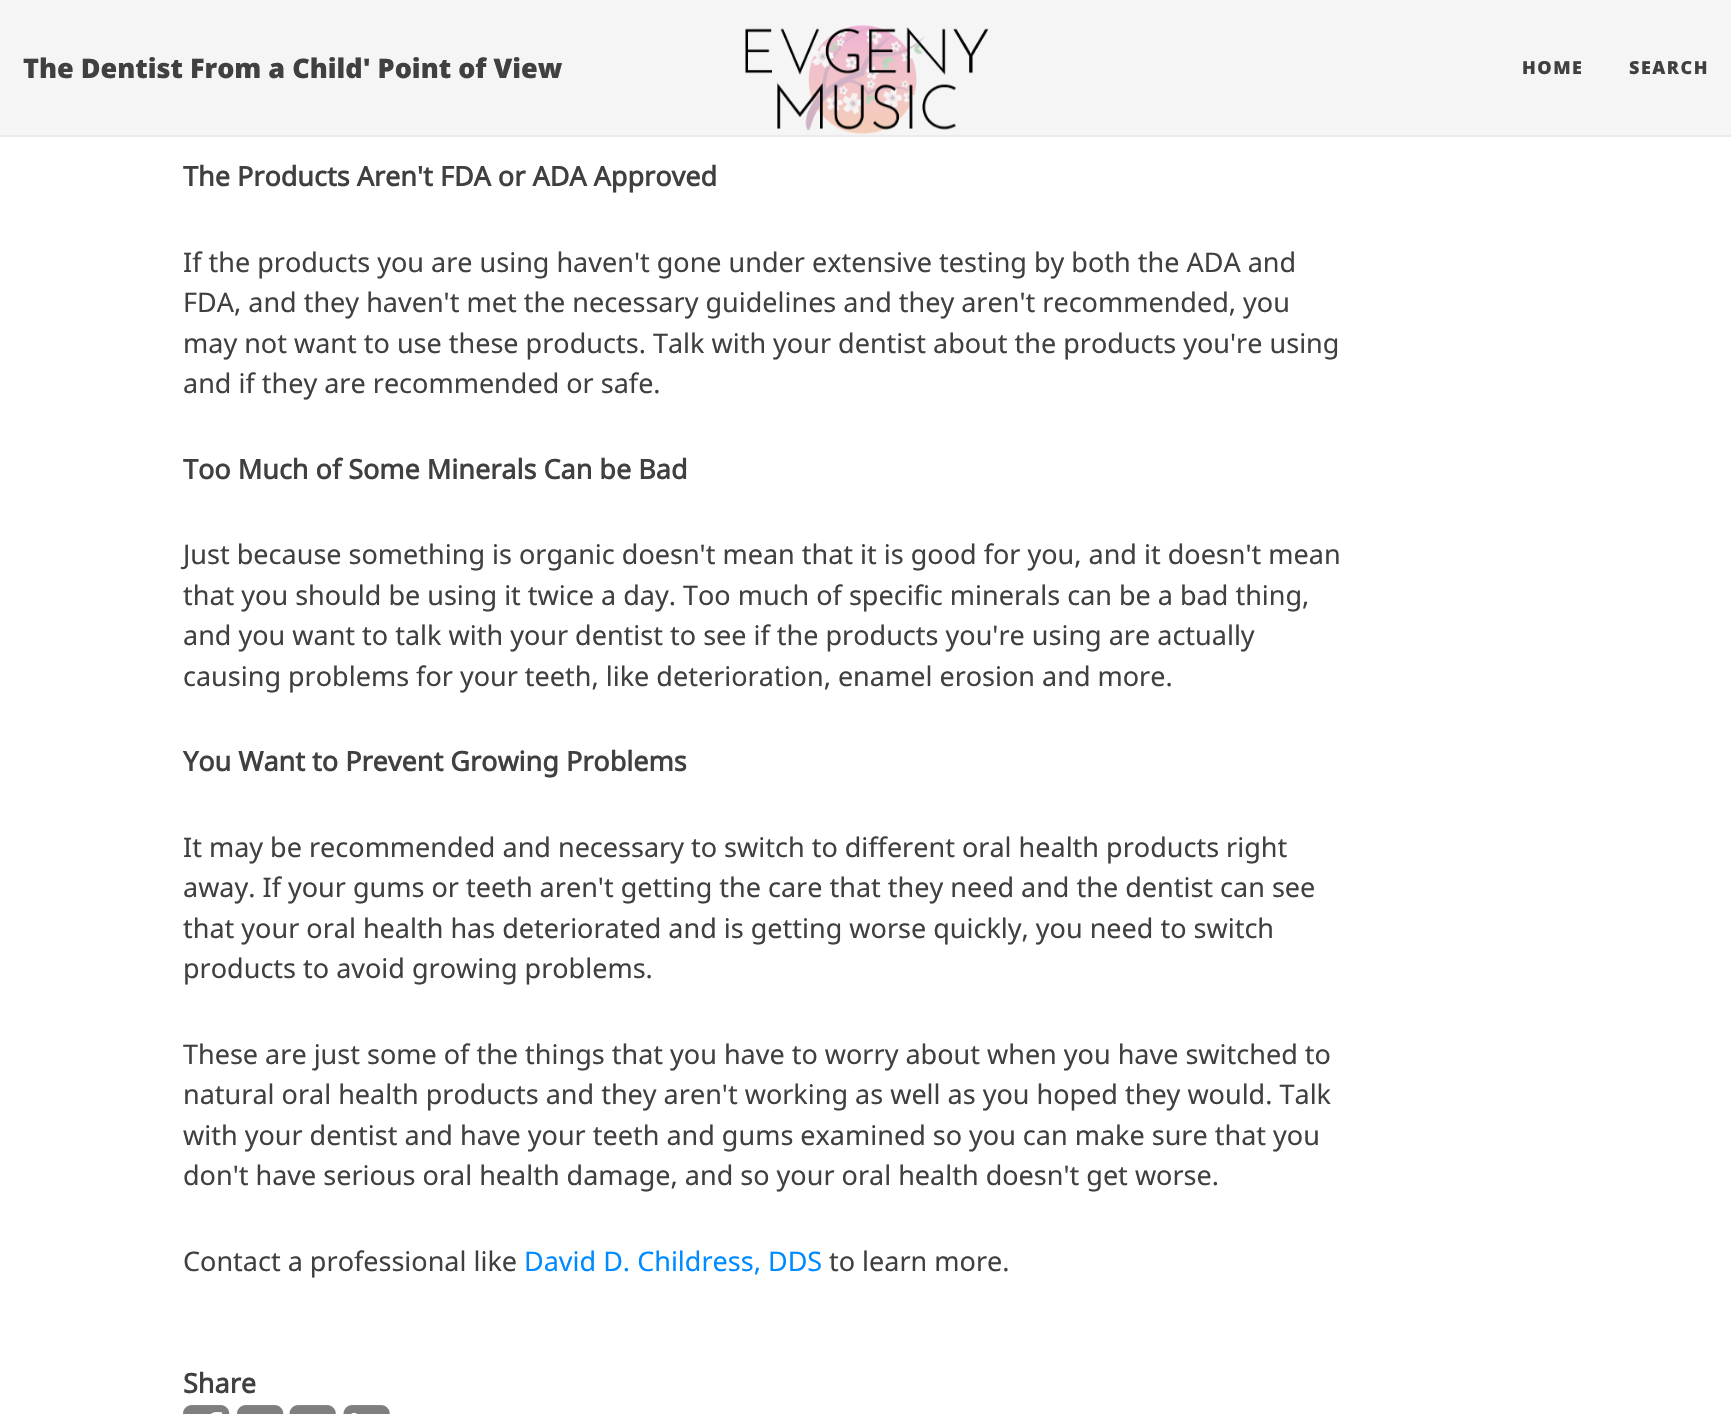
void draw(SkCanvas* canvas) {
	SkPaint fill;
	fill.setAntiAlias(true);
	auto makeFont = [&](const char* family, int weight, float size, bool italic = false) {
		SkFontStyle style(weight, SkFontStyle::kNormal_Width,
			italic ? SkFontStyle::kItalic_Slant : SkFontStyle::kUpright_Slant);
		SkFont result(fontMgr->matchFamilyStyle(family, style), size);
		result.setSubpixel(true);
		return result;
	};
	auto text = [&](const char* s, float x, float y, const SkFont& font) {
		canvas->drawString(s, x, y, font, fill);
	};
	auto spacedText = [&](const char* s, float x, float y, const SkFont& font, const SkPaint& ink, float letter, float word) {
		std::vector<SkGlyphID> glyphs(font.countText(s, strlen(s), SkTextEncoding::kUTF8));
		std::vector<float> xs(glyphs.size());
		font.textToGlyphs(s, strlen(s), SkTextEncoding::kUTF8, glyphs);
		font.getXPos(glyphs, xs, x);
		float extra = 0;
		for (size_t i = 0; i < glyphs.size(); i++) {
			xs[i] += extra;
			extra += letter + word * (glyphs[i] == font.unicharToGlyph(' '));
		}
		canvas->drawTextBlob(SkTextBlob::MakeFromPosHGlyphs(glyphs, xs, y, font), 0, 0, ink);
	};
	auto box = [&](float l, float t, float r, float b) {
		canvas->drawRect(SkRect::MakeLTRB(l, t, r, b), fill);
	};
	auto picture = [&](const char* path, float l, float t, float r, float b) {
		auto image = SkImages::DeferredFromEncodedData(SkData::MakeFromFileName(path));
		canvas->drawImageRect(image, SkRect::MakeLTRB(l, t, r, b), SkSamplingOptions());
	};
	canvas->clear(0xFFFFFFFF);
	fill.setColor(0xFFF5F5F5);
	box(0, 0, 1731, 135);
	fill.setColor(0xFFEAEAEA);
	box(0, 135, 1731, 137);
	picture("image0.png", 745, 25, 989, 134);
	picture("image1.png", 183, 1405, 230, 1414);
	picture("image2.png", 237, 1405, 284, 1414);
	picture("image3.png", 289, 1405, 336, 1414);
	picture("image4.png", 343, 1405, 390, 1414);
	auto font1 = makeFont("Open Sans", 800, 27);
	fill.setColor(0xFF404040);
	text("The Dentist From a Child' Point of View", 23, 78, font1);
	auto font2 = makeFont("Open Sans", 800, 18);
	spacedText("HOME", 1522, 74, font2, fill, 1.5f, 0);
	spacedText("SEARCH", 1629, 74, font2, fill, 1.5f, 0);
	auto font3 = makeFont("Noto Sans", 700, 27);
	text("The Products Aren't FDA or ADA Approved", 183, 186, font3);
	auto font4 = makeFont("Noto Sans", 400, 27);
	text("If the products you are using haven't gone under extensive testing by both the ADA and", 183, 272, font4);
	text("FDA, and they haven't met the necessary guidelines and they aren't recommended, you", 183, 312, font4);
	text("may not want to use these products. Talk with your dentist about the products you're using", 183, 353, font4);
	text("and if they are recommended or safe.", 183, 393, font4);
	text("Too Much of Some Minerals Can be Bad", 183, 479, font3);
	text("Just because something is organic doesn't mean that it is good for you, and it doesn't mean", 183, 564, font4);
	text("that you should be using it twice a day. Too much of specific minerals can be a bad thing,", 183, 605, font4);
	text("and you want to talk with your dentist to see if the products you're using are actually", 183, 645, font4);
	text("causing problems for your teeth, like deterioration, enamel erosion and more.", 183, 686, font4);
	text("You Want to Prevent Growing Problems", 183, 771, font3);
	text("It may be recommended and necessary to switch to different oral health products right", 183, 857, font4);
	text("away. If your gums or teeth aren't getting the care that they need and the dentist can see", 183, 897, font4);
	text("that your oral health has deteriorated and is getting worse quickly, you need to switch", 183, 938, font4);
	text("products to avoid growing problems.", 183, 978, font4);
	text("These are just some of the things that you have to worry about when you have switched to", 183, 1064, font4);
	text("natural oral health products and they aren't working as well as you hoped they would. Talk", 183, 1104, font4);
	text("with your dentist and have your teeth and gums examined so you can make sure that you", 183, 1145, font4);
	text("don't have serious oral health damage, and so your oral health doesn't get worse.", 183, 1185, font4);
	text("Contact a professional like", 183, 1271, font4);
	fill.setColor(0xFF008AFF);
	text("David D. Childress, DDS", 524, 1271, font4);
	fill.setColor(0xFF404040);
	text("to learn more.", 829, 1271, font4);
	text("Share", 183, 1393, font3);
}
